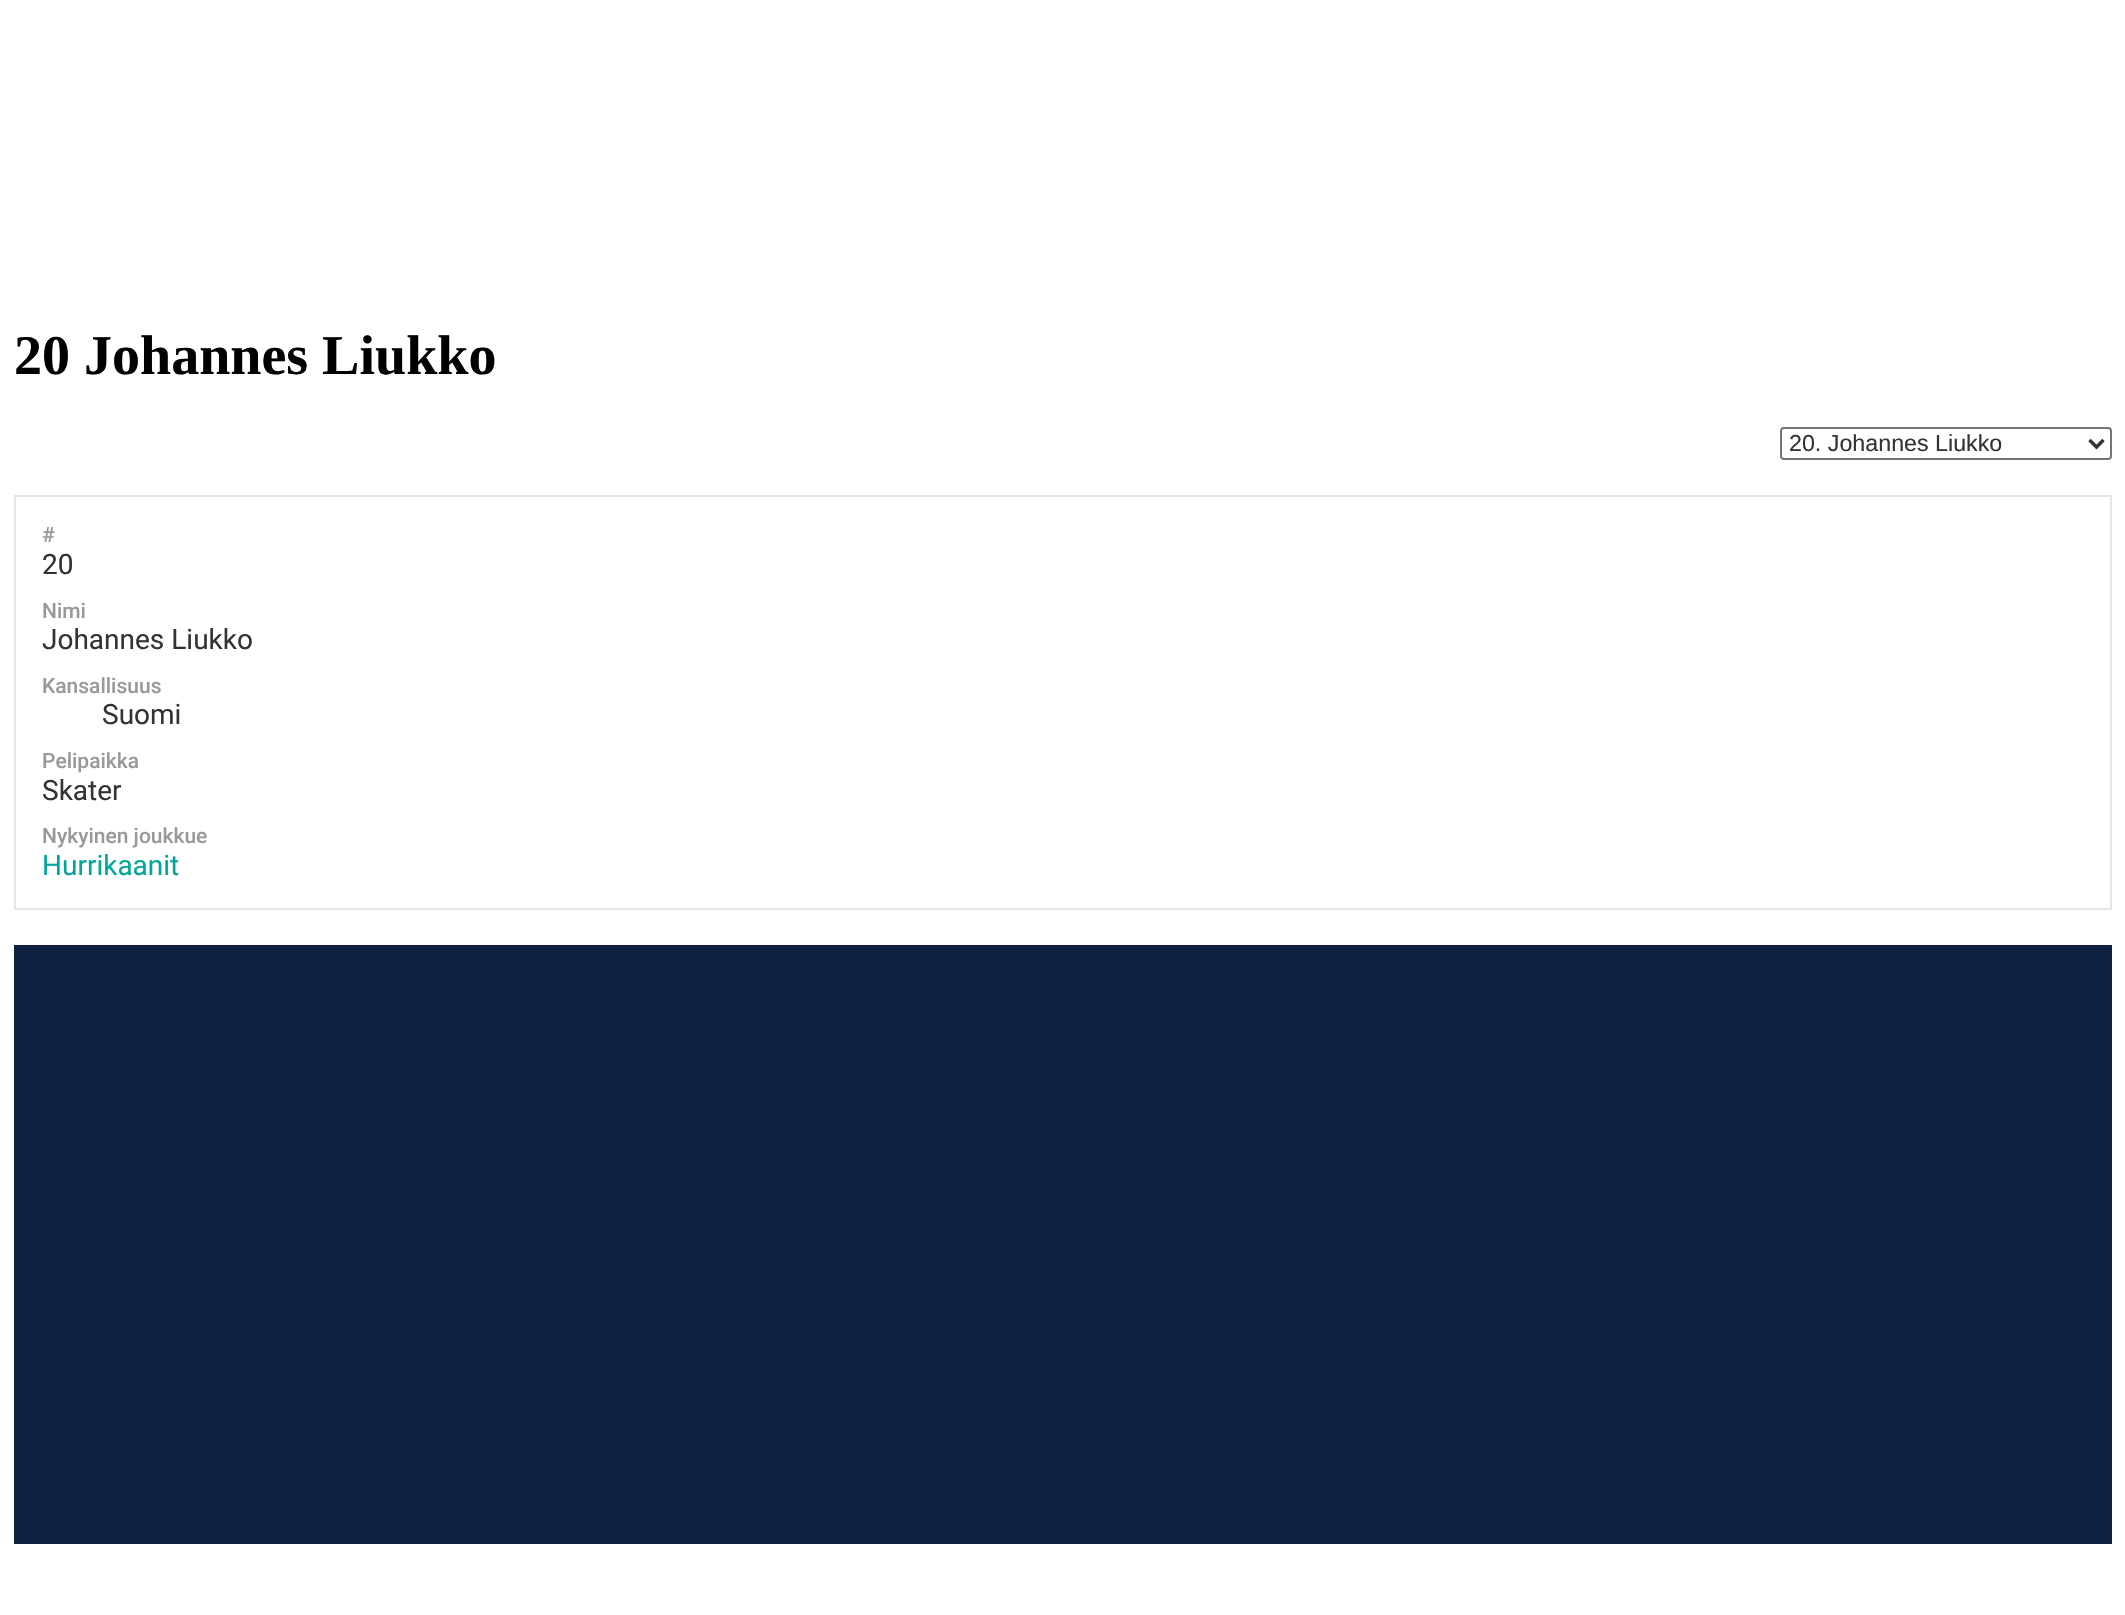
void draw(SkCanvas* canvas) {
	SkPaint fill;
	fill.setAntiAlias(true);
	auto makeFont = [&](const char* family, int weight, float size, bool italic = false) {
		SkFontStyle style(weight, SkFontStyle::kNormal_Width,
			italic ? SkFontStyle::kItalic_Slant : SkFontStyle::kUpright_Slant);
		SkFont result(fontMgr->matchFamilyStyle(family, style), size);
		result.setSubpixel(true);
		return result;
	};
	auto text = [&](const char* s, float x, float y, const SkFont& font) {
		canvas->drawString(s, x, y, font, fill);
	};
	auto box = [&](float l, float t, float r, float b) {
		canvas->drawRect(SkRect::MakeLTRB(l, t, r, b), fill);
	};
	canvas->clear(0xFFFFFFFF);
	fill.setStyle(SkPaint::kStroke_Style);
	fill.setStrokeWidth(2);
	fill.setColor(0xFF767676);
	canvas->drawRoundRect(SkRect::MakeLTRB(1781, 428, 2111, 459), 3, 3, fill);
	fill.setStrokeWidth(3.5f);
	fill.setColor(0xFF333333);
	canvas->drawPath(SkPathBuilder().moveTo(2089.5f, 440).lineTo(2096.5f, 447).lineTo(2103.5f, 440).detach(), fill);
	fill.setStrokeWidth(2);
	fill.setColor(0xFFE5E5E5);
	canvas->drawRect(SkRect::MakeLTRB(15, 496, 2111, 909), fill);
	fill.setStyle(SkPaint::kFill_Style);
	fill.setColor(0xFF0F2141);
	box(14, 945, 2112, 1544);
	auto font1 = makeFont("Liberation Serif", 700, 56);
	fill.setColor(0xFF000000);
	text("20 Johannes Liukko", 14, 374, font1);
	auto font2 = makeFont("Liberation Sans", 400, 23.25f);
	fill.setColor(0xFF333333);
	text("20. Johannes Liukko", 1789, 451, font2);
	auto font3 = makeFont("Roboto", 500, 21);
	fill.setColor(0xFF999999);
	text("#", 42, 542, font3);
	auto font4 = makeFont("Roboto", 400, 28);
	fill.setColor(0xFF333333);
	text("20", 42, 574, font4);
	fill.setColor(0xFF999999);
	text("Nimi", 42, 618, font3);
	fill.setColor(0xFF333333);
	text("Johannes Liukko", 42, 649, font4);
	fill.setColor(0xFF999999);
	text("Kansallisuus", 42, 693, font3);
	fill.setColor(0xFF333333);
	text("Suomi", 102, 724, font4);
	fill.setColor(0xFF999999);
	text("Pelipaikka", 42, 768, font3);
	fill.setColor(0xFF333333);
	text("Skater", 42, 800, font4);
	fill.setColor(0xFF999999);
	text("Nykyinen joukkue", 42, 843, font3);
	fill.setColor(0xFF00A69C);
	text("Hurrikaanit", 42, 875, font4);
}
